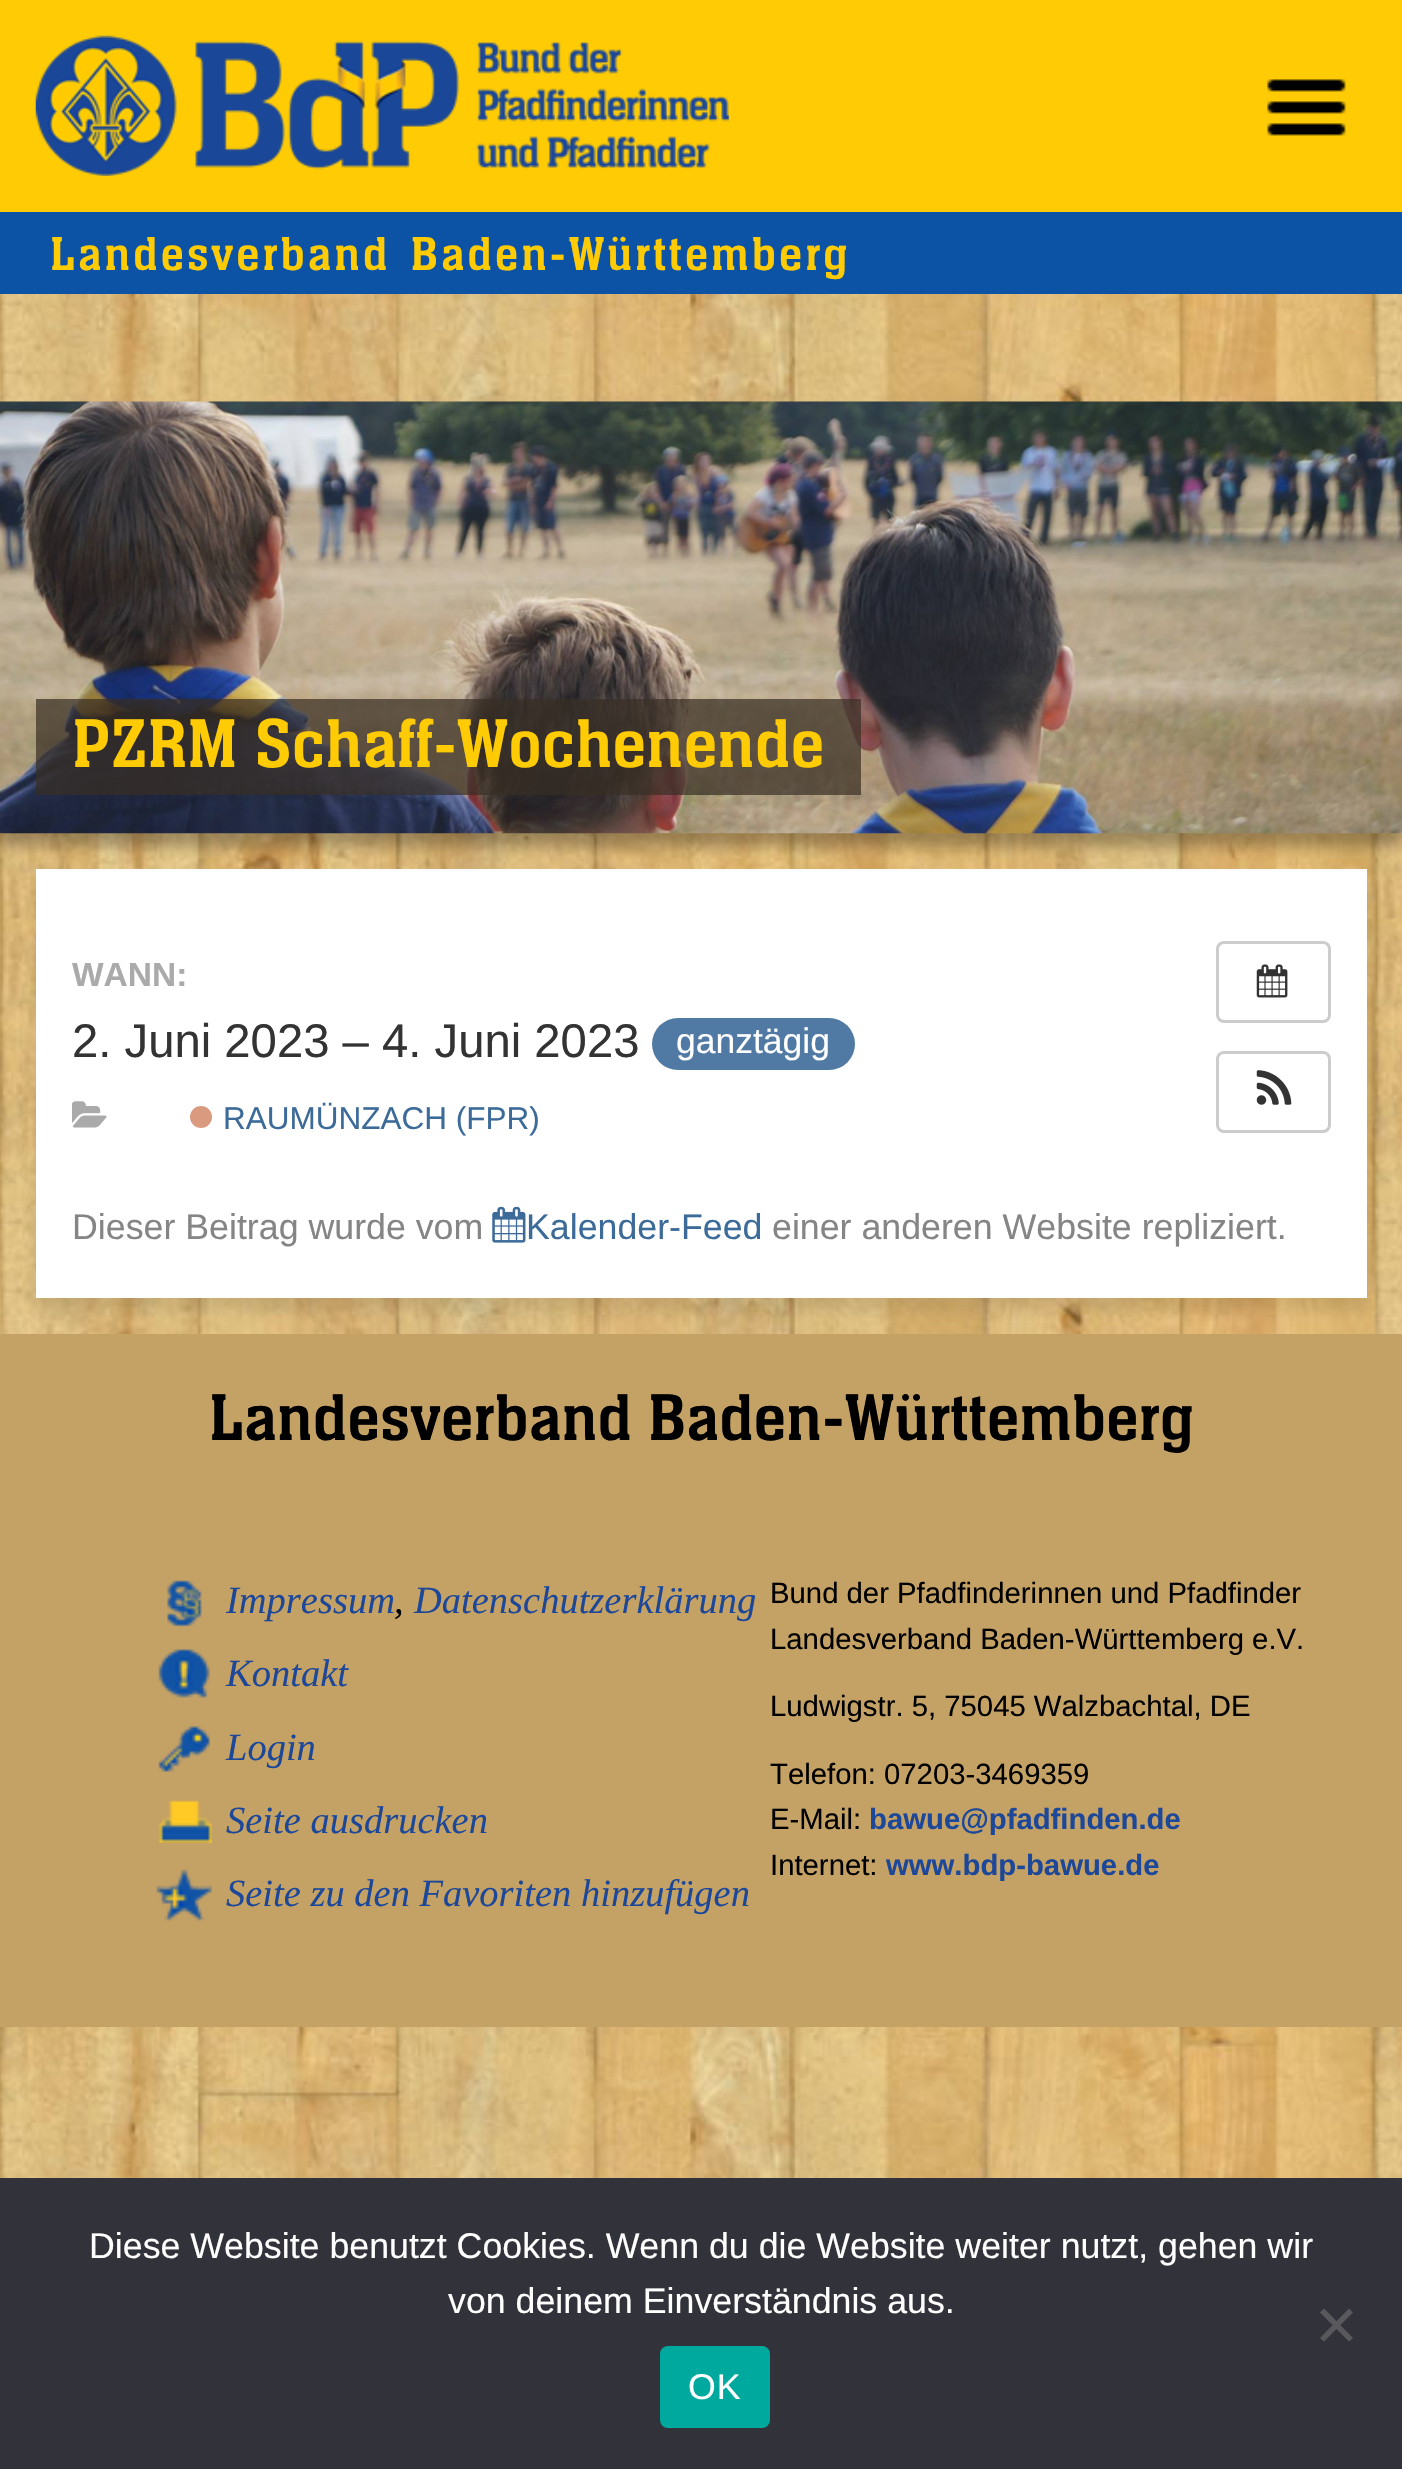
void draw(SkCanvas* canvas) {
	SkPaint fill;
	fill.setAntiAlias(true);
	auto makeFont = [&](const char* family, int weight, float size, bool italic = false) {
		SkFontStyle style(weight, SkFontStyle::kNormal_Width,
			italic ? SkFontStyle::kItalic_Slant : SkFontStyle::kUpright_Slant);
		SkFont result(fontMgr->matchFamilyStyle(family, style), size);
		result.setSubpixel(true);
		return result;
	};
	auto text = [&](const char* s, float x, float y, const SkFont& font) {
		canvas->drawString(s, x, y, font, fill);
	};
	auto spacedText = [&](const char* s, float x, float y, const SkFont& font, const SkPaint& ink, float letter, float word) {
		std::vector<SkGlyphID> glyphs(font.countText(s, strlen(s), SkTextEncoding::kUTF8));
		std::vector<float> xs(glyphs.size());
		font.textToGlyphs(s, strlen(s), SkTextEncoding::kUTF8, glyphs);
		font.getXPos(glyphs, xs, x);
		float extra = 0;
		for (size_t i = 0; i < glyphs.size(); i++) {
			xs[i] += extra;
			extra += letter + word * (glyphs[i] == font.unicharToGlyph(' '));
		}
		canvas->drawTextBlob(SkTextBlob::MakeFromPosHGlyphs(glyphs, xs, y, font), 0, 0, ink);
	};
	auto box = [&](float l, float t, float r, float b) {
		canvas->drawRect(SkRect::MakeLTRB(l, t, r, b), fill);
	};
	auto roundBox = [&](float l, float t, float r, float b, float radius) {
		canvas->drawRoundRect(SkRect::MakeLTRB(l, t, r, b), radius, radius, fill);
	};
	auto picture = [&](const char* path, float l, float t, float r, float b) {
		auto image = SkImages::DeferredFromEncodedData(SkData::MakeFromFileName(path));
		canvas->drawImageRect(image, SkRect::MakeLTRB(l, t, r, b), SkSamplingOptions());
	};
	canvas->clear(0xFFFFFFFF);
	picture("image0.png", 0, 294, 1402, 2178);
	fill.setColor(0xFFFFCB04);
	box(0, 0, 1402, 212);
	picture("image1.png", 1267, 79, 1346, 136);
	picture("image2.png", 35, 35, 729, 176);
	fill.setColor(0xFF0D53A5);
	box(0, 212, 1402, 294);
	fill.setColor(0x4D000000);
	fill.setMaskFilter(SkMaskFilter::MakeBlur(kNormal_SkBlurStyle, 7));
	canvas->drawRect(SkRect::MakeLTRB(0, 415, 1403, 847), fill);
	fill.setMaskFilter(nullptr);
	picture("image3.png", 0, 401, 1402, 834);
	fill.setColor(0xB3382E23);
	box(36, 699, 861, 795);
	fill.setColor(0x1A000000);
	fill.setMaskFilter(SkMaskFilter::MakeBlur(kNormal_SkBlurStyle, 7));
	canvas->drawRect(SkRect::MakeLTRB(36, 883, 1367, 1312), fill);
	fill.setMaskFilter(nullptr);
	fill.setColor(0xFFFFFFFF);
	box(36, 869, 1367, 1298);
	fill.setColor(0xFF507AA3);
	roundBox(652, 1018, 855, 1070, 26);
	picture("image4.png", 72, 1101, 107, 1128);
	fill.setColor(0xFFD99A7F);
	canvas->drawCircle(201, 1117, 11, fill);
	fill.setStyle(SkPaint::kStroke_Style);
	fill.setStrokeWidth(3);
	fill.setColor(0xFFCCCCCC);
	canvas->drawRoundRect(SkRect::MakeLTRB(1217.5f, 942.5f, 1329.5f, 1021.5f), 6.5f, 6.5f, fill);
	picture("image5.png", 1256, 964, 1288, 998);
	canvas->drawRoundRect(SkRect::MakeLTRB(1217.5f, 1052.5f, 1329.5f, 1131.5f), 6.5f, 6.5f, fill);
	picture("image6.png", 1256, 1070, 1292, 1105);
	picture("image7.png", 492, 1206, 526, 1243);
	fill.setStyle(SkPaint::kFill_Style);
	fill.setColor(0xFFC4A164);
	box(0, 1334, 1402, 2027);
	picture("image8.png", 167, 1580, 202, 1627);
	picture("image9.png", 158, 1649, 210, 1698);
	picture("image10.png", 158, 1726, 210, 1772);
	picture("image11.png", 158, 1800, 212, 1844);
	picture("image12.png", 156, 1869, 212, 1921);
	fill.setColor(0xFF32323A);
	box(0, 2178, 1402, 2469);
	fill.setColor(0xFF59595D);
	canvas->drawPath(SkPathBuilder().moveTo(1349, 2308.5f).lineTo(1353, 2312.5f).lineTo(1324, 2341.5f).lineTo(1320, 2338).close().detach(), fill);
	canvas->drawPath(SkPathBuilder().moveTo(1320, 2312.5f).lineTo(1324, 2308.5f).lineTo(1353, 2338).lineTo(1349, 2341.5f).close().detach(), fill);
	fill.setColor(0xFF00A99D);
	roundBox(660, 2346, 770, 2428, 8);
	auto font1 = makeFont("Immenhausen", 400, 49.5f);
	fill.setColor(0xFFFFCB04);
	spacedText("Landesverband Baden-Württemberg", 50, 270, font1, fill, 2.75f, 6);
	auto font2 = makeFont("Immenhausen", 400, 71.5f);
	text("PZRM Schaff-Wochenende", 72, 767, font2);
	auto font3 = makeFont("Liberation Sans", 700, 33.5f);
	fill.setColor(0xFFAAAAAA);
	text("WANN:", 72, 986, font3);
	auto font4 = makeFont("Liberation Sans", 400, 47.25f);
	fill.setColor(0xFF333333);
	text("2. Juni 2023 – 4. Juni 2023", 72, 1057, font4);
	auto font5 = makeFont("Liberation Sans", 400, 35.5f);
	fill.setColor(0xFFFFFFFF);
	text("ganztägig", 676, 1053, font5);
	auto font6 = makeFont("Liberation Sans", 400, 31.5f);
	fill.setColor(0xFF3D6B99);
	text("RAUMÜNZACH (FPR)", 223, 1129, font6);
	auto font7 = makeFont("Liberation Sans", 400, 35.75f);
	fill.setColor(0xFF858585);
	text("Dieser Beitrag wurde vom", 72, 1239, font7);
	fill.setColor(0xFF3D6B99);
	text("Kalender-Feed", 526, 1239, font7);
	fill.setColor(0xFF858585);
	text("einer anderen Website repliziert.", 772, 1239, font7);
	auto font8 = makeFont("Immenhausen", 400, 68.75f);
	fill.setColor(0xFF000000);
	text("Landesverband Baden-Württemberg", 209, 1440, font8);
	auto font9 = makeFont("Liberation Serif", 400, 38.5f, true);
	fill.setColor(0xFF1D4899);
	text("Impressum", 226, 1613, font9);
	fill.setColor(0xFF000000);
	text(",", 394, 1613, font9);
	fill.setColor(0xFF1D4899);
	text("Datenschutzerklärung", 414, 1613, font9);
	text("Kontakt", 226, 1686, font9);
	text("Login", 226, 1760, font9);
	text("Seite ausdrucken", 226, 1833, font9);
	text("Seite zu den Favoriten hinzufügen", 226, 1906, font9);
	auto font10 = makeFont("Liberation Sans", 400, 29.3f);
	fill.setColor(0xFF000000);
	text("Bund der Pfadfinderinnen und Pfadfinder", 770, 1603, font10);
	text("Landesverband Baden-Württemberg e.V.", 770, 1649, font10);
	text("Ludwigstr. 5, 75045 Walzbachtal, DE", 770, 1716, font10);
	text("Telefon: 07203-3469359", 770, 1784, font10);
	text("E-Mail:", 770, 1829, font10);
	auto font11 = makeFont("Liberation Sans", 700, 29.3f);
	fill.setColor(0xFF1D4899);
	text("bawue@pfadfinden.de", 869, 1829, font11);
	fill.setColor(0xFF000000);
	text("Internet:", 770, 1875, font10);
	fill.setColor(0xFF1D4899);
	text("www.bdp-bawue.de", 886, 1875, font11);
	fill.setColor(0xFFFFFFFF);
	text("Diese Website benutzt Cookies. Wenn du die Website weiter nutzt, gehen wir", 89, 2258, font7);
	text("von deinem Einverständnis aus.", 448, 2313, font7);
	spacedText("OK", 688, 2399, font7, fill, 1, 0);
}
